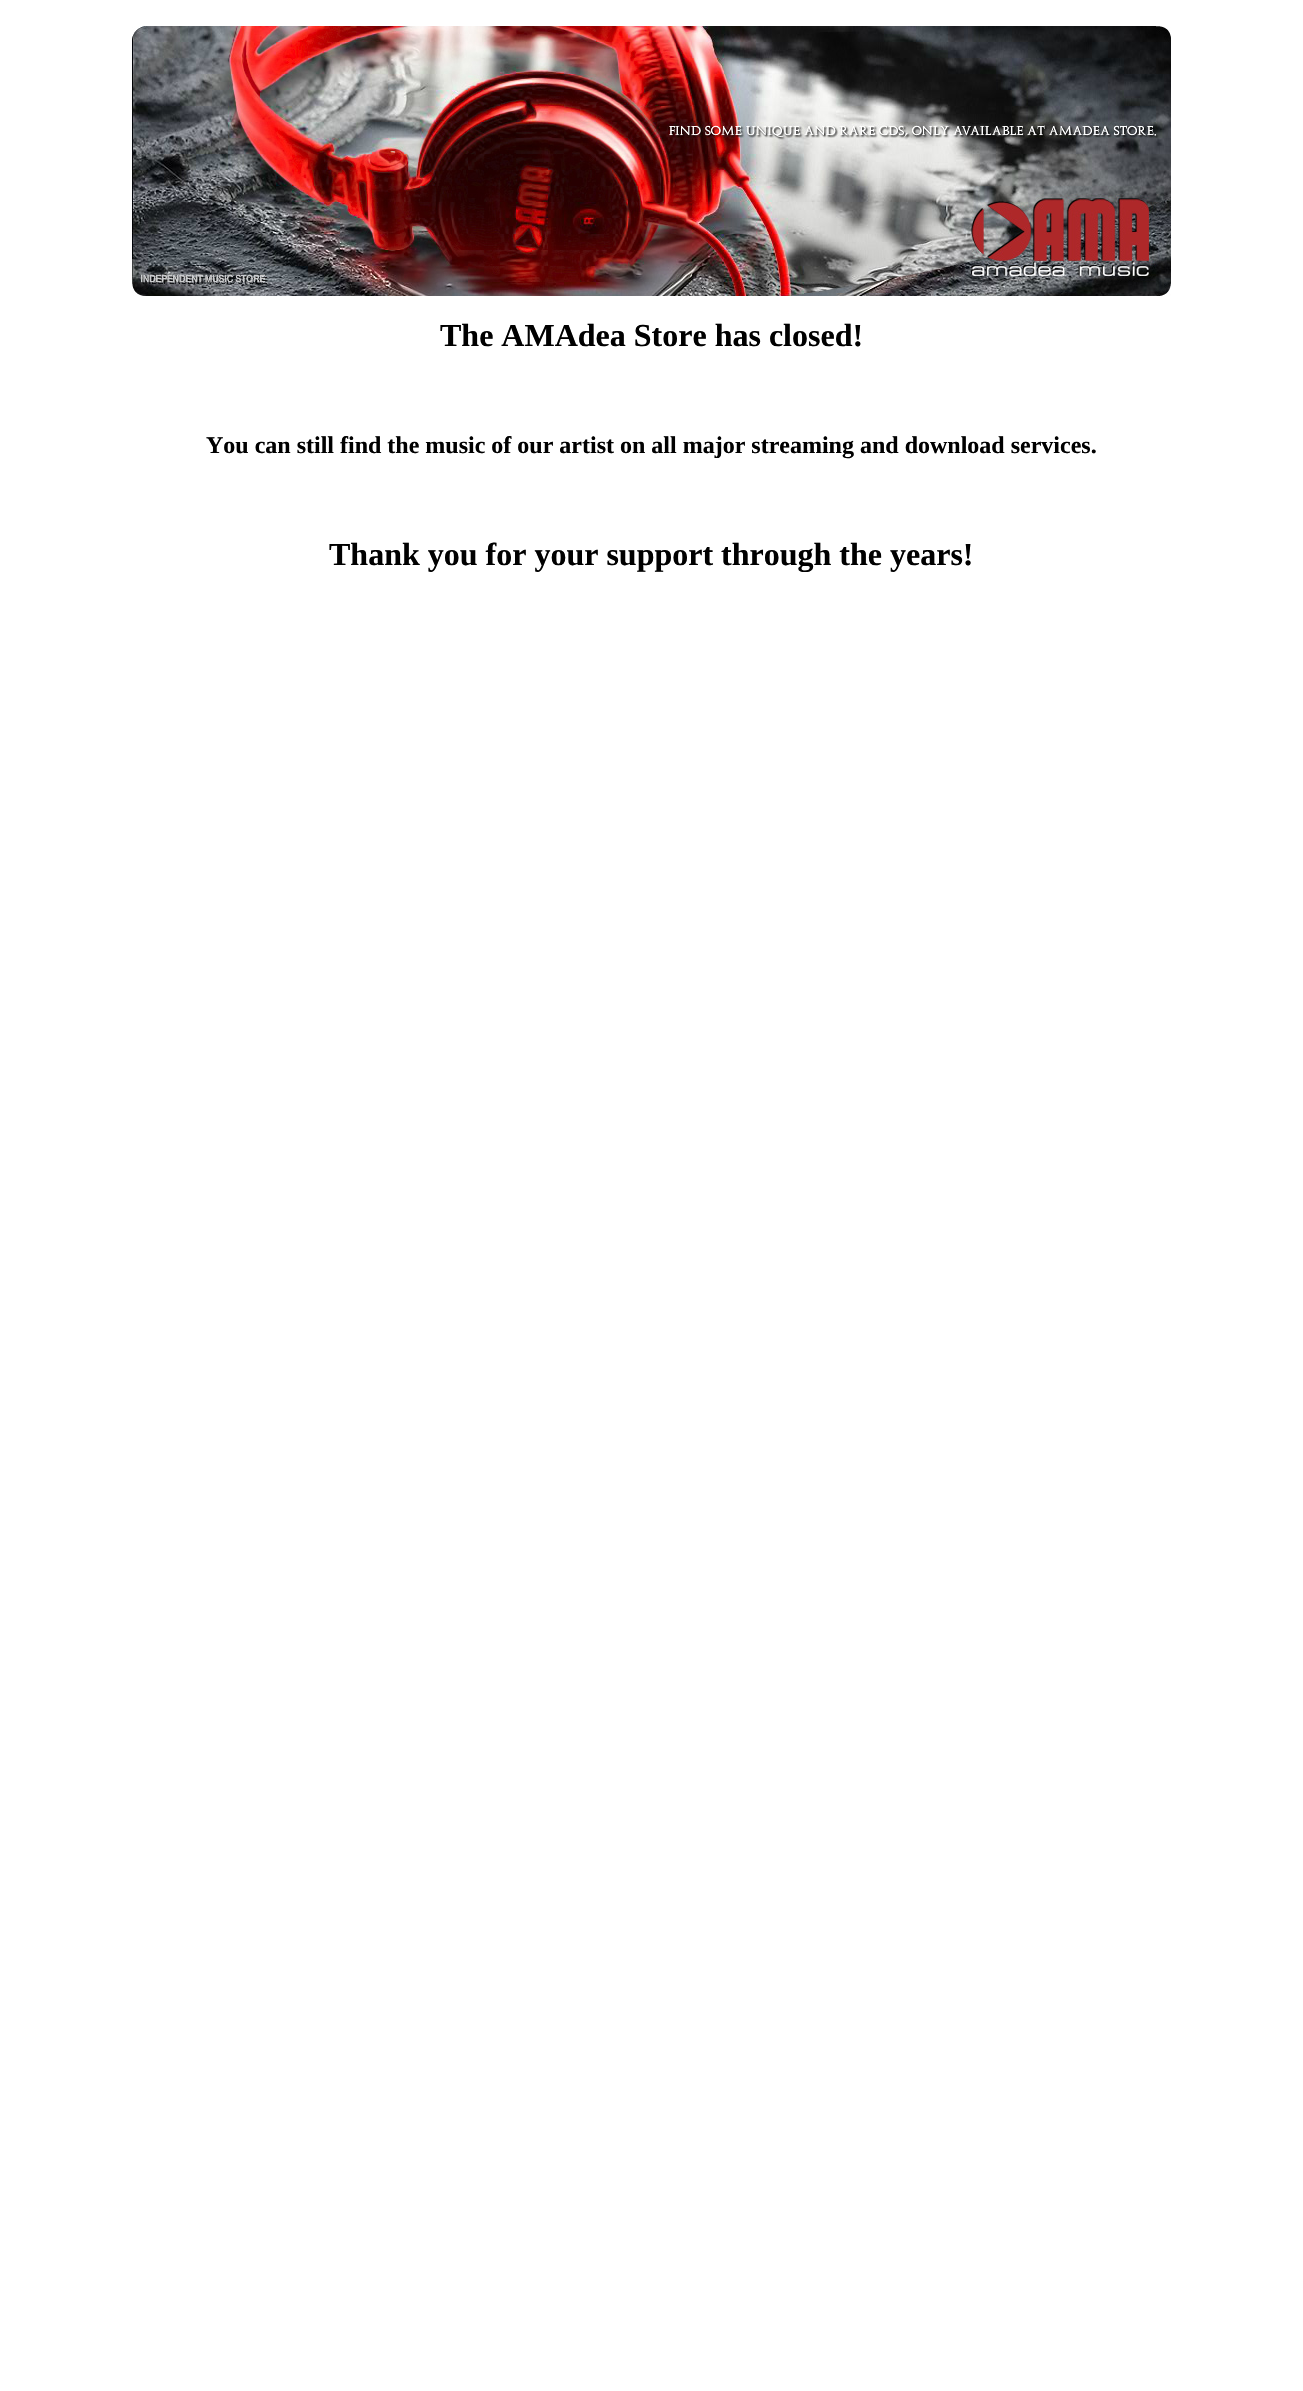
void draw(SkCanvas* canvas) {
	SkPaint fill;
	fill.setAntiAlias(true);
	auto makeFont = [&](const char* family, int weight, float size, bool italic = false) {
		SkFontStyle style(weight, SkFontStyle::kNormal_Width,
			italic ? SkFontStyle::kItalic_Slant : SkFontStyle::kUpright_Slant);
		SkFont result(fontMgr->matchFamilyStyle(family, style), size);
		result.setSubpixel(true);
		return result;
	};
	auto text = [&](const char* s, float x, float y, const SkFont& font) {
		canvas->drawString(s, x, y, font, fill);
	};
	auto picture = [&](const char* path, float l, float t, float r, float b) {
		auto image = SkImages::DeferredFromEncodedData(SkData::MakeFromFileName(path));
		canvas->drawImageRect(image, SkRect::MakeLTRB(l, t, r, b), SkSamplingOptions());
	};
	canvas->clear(0xFFFFFFFF);
	picture("image0.png", 132, 26, 1171, 296);
	auto font1 = makeFont("Liberation Serif", 700, 32);
	fill.setColor(0xFF000000);
	text("The AMAdea Store has closed!", 440, 346, font1);
	auto font2 = makeFont("Liberation Serif", 700, 24);
	text("You can still find the music of our artist on all major streaming and download services.", 206, 453, font2);
	text("Thank you for your support through the years!", 329, 565, font1);
}
